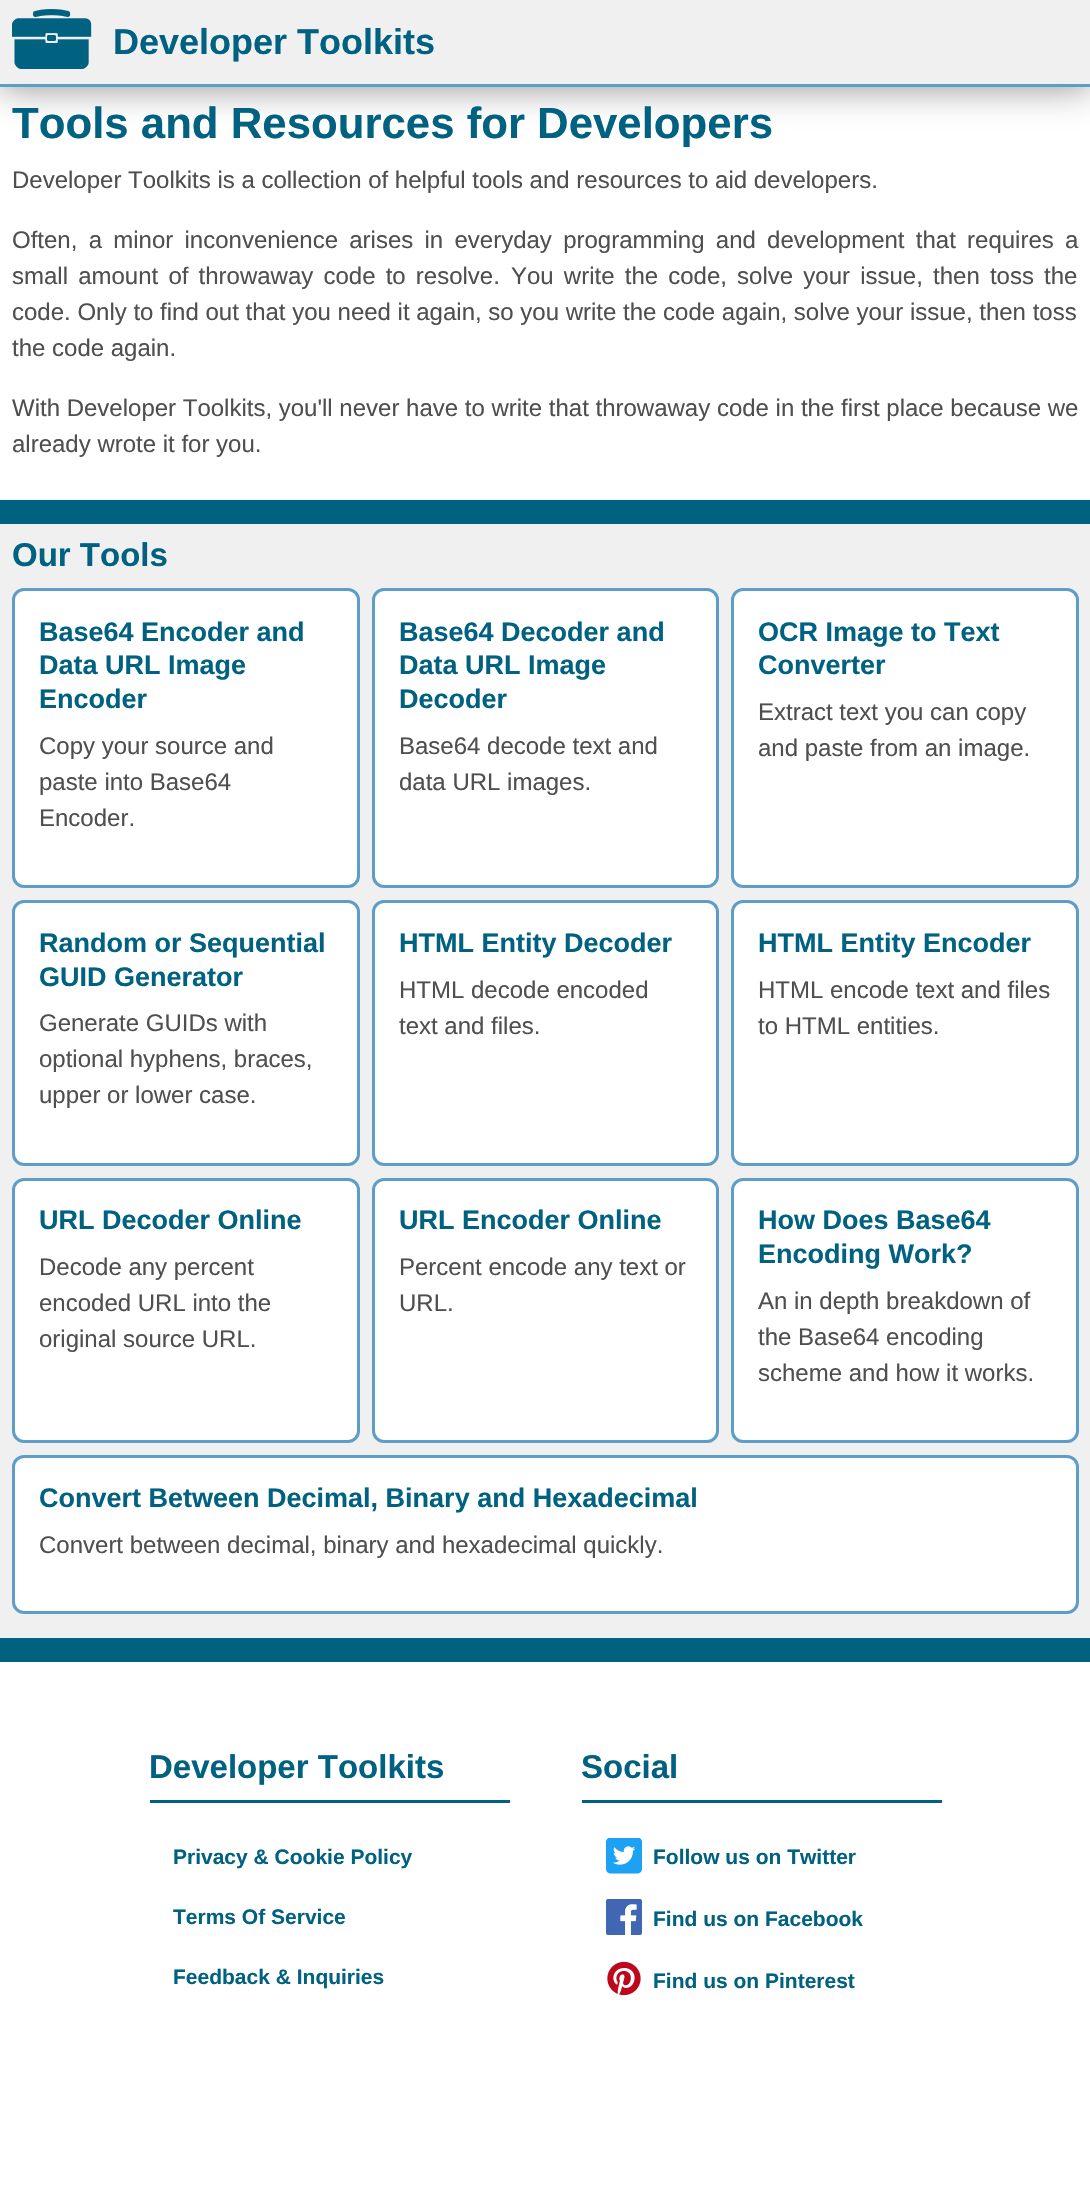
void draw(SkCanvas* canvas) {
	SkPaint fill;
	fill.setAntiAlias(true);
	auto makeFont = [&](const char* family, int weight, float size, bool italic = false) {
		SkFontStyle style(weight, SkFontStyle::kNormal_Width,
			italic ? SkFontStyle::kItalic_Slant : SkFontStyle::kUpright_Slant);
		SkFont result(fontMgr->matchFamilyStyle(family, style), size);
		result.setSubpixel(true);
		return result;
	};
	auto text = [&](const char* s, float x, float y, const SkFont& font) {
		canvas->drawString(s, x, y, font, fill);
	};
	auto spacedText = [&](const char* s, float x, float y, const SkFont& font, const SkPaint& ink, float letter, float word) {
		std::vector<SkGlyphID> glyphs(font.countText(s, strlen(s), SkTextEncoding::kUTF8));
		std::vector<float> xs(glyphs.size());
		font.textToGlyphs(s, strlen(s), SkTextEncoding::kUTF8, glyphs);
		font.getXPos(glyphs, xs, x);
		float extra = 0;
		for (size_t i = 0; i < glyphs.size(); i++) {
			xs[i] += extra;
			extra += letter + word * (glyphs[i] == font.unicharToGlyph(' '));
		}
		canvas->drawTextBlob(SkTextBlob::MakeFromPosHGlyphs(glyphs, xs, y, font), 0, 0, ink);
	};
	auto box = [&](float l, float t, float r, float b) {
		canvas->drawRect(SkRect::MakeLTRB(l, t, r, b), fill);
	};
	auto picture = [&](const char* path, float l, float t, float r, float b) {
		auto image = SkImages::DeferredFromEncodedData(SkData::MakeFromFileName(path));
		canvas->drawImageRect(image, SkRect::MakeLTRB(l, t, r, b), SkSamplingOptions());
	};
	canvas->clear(0xFFFFFFFF);
	fill.setColor(0xFF8B8B8B);
	fill.setMaskFilter(SkMaskFilter::MakeBlur(kNormal_SkBlurStyle, 18));
	canvas->drawRect(SkRect::MakeLTRB(0, 0, 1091, 87), fill);
	fill.setMaskFilter(nullptr);
	fill.setColor(0xFFF0F0F0);
	box(0, 0, 1090, 84);
	fill.setColor(0xFF5E9DC8);
	box(0, 84, 1090, 87);
	picture("image0.png", 12, 9, 92, 69);
	fill.setColor(0xFFF0F0F0);
	box(0, 524, 1090, 1638);
	fill.setColor(0xFF006181);
	box(0, 500, 1090, 524);
	fill.setColor(0xFFFFFFFF);
	canvas->drawRoundRect(SkRect::MakeLTRB(13.5f, 589.5f, 358.5f, 886.5f), 10.5f, 10.5f, fill);
	fill.setStyle(SkPaint::kStroke_Style);
	fill.setStrokeWidth(3);
	fill.setColor(0xFF5E9DC8);
	canvas->drawRoundRect(SkRect::MakeLTRB(13.5f, 589.5f, 358.5f, 886.5f), 10.5f, 10.5f, fill);
	fill.setStyle(SkPaint::kFill_Style);
	fill.setColor(0xFFFFFFFF);
	canvas->drawRoundRect(SkRect::MakeLTRB(373.5f, 589.5f, 717.5f, 886.5f), 10.5f, 10.5f, fill);
	fill.setStyle(SkPaint::kStroke_Style);
	fill.setColor(0xFF5E9DC8);
	canvas->drawRoundRect(SkRect::MakeLTRB(373.5f, 589.5f, 717.5f, 886.5f), 10.5f, 10.5f, fill);
	fill.setStyle(SkPaint::kFill_Style);
	fill.setColor(0xFFFFFFFF);
	canvas->drawRoundRect(SkRect::MakeLTRB(732.5f, 589.5f, 1077.5f, 886.5f), 10.5f, 10.5f, fill);
	fill.setStyle(SkPaint::kStroke_Style);
	fill.setColor(0xFF5E9DC8);
	canvas->drawRoundRect(SkRect::MakeLTRB(732.5f, 589.5f, 1077.5f, 886.5f), 10.5f, 10.5f, fill);
	fill.setStyle(SkPaint::kFill_Style);
	fill.setColor(0xFFFFFFFF);
	canvas->drawRoundRect(SkRect::MakeLTRB(13.5f, 901.5f, 358.5f, 1164.5f), 10.5f, 10.5f, fill);
	fill.setStyle(SkPaint::kStroke_Style);
	fill.setColor(0xFF5E9DC8);
	canvas->drawRoundRect(SkRect::MakeLTRB(13.5f, 901.5f, 358.5f, 1164.5f), 10.5f, 10.5f, fill);
	fill.setStyle(SkPaint::kFill_Style);
	fill.setColor(0xFFFFFFFF);
	canvas->drawRoundRect(SkRect::MakeLTRB(373.5f, 901.5f, 717.5f, 1164.5f), 10.5f, 10.5f, fill);
	fill.setStyle(SkPaint::kStroke_Style);
	fill.setColor(0xFF5E9DC8);
	canvas->drawRoundRect(SkRect::MakeLTRB(373.5f, 901.5f, 717.5f, 1164.5f), 10.5f, 10.5f, fill);
	fill.setStyle(SkPaint::kFill_Style);
	fill.setColor(0xFFFFFFFF);
	canvas->drawRoundRect(SkRect::MakeLTRB(732.5f, 901.5f, 1077.5f, 1164.5f), 10.5f, 10.5f, fill);
	fill.setStyle(SkPaint::kStroke_Style);
	fill.setColor(0xFF5E9DC8);
	canvas->drawRoundRect(SkRect::MakeLTRB(732.5f, 901.5f, 1077.5f, 1164.5f), 10.5f, 10.5f, fill);
	fill.setStyle(SkPaint::kFill_Style);
	fill.setColor(0xFFFFFFFF);
	canvas->drawRoundRect(SkRect::MakeLTRB(13.5f, 1179.5f, 358.5f, 1441.5f), 10.5f, 10.5f, fill);
	fill.setStyle(SkPaint::kStroke_Style);
	fill.setColor(0xFF5E9DC8);
	canvas->drawRoundRect(SkRect::MakeLTRB(13.5f, 1179.5f, 358.5f, 1441.5f), 10.5f, 10.5f, fill);
	fill.setStyle(SkPaint::kFill_Style);
	fill.setColor(0xFFFFFFFF);
	canvas->drawRoundRect(SkRect::MakeLTRB(373.5f, 1179.5f, 717.5f, 1441.5f), 10.5f, 10.5f, fill);
	fill.setStyle(SkPaint::kStroke_Style);
	fill.setColor(0xFF5E9DC8);
	canvas->drawRoundRect(SkRect::MakeLTRB(373.5f, 1179.5f, 717.5f, 1441.5f), 10.5f, 10.5f, fill);
	fill.setStyle(SkPaint::kFill_Style);
	fill.setColor(0xFFFFFFFF);
	canvas->drawRoundRect(SkRect::MakeLTRB(732.5f, 1179.5f, 1077.5f, 1441.5f), 10.5f, 10.5f, fill);
	fill.setStyle(SkPaint::kStroke_Style);
	fill.setColor(0xFF5E9DC8);
	canvas->drawRoundRect(SkRect::MakeLTRB(732.5f, 1179.5f, 1077.5f, 1441.5f), 10.5f, 10.5f, fill);
	fill.setStyle(SkPaint::kFill_Style);
	fill.setColor(0xFFFFFFFF);
	canvas->drawRoundRect(SkRect::MakeLTRB(13.5f, 1456.5f, 1077.5f, 1612.5f), 10.5f, 10.5f, fill);
	fill.setStyle(SkPaint::kStroke_Style);
	fill.setColor(0xFF5E9DC8);
	canvas->drawRoundRect(SkRect::MakeLTRB(13.5f, 1456.5f, 1077.5f, 1612.5f), 10.5f, 10.5f, fill);
	fill.setStyle(SkPaint::kFill_Style);
	fill.setColor(0xFF006181);
	box(0, 1638, 1090, 1662);
	box(150, 1800, 510, 1803);
	box(582, 1800, 942, 1803);
	picture("image1.png", 606, 1838, 642, 1874);
	picture("image2.png", 606, 1899, 642, 1935);
	picture("image3.png", 607, 1961, 641, 1996);
	auto font1 = makeFont("Liberation Sans", 700, 36);
	text("Developer Toolkits", 113, 54, font1);
	auto font2 = makeFont("Liberation Sans", 700, 43.75f);
	text("Tools and Resources for Developers", 12, 138, font2);
	auto font3 = makeFont("Liberation Sans", 400, 24);
	fill.setColor(0xFF4F4F4F);
	text("Developer Toolkits is a collection of helpful tools and resources to aid developers.", 12, 188, font3);
	spacedText("Often, a minor inconvenience arises in everyday programming and development that requires a", 12, 248, font3, fill, 0, 4.6f);
	spacedText("small amount of throwaway code to resolve.", 12, 284, font3, fill, 0, 3.5f);
	spacedText("You write the code, solve your issue, then toss the", 511, 284, font3, fill, 0, 3.5f);
	text("code. Only to find out that you need it again, so you write the code again, solve your issue, then toss", 12, 320, font3);
	text("the code again.", 12, 356, font3);
	text("With Developer Toolkits, you'll never have to write that throwaway code in the first place because we", 12, 416, font3);
	text("already wrote it for you.", 12, 452, font3);
	auto font4 = makeFont("Liberation Sans", 700, 33);
	fill.setColor(0xFF006181);
	text("Our Tools", 12, 566, font4);
	auto font5 = makeFont("Liberation Sans", 700, 27);
	text("Base64 Encoder and", 39, 641, font5);
	text("Data URL Image", 39, 674, font5);
	text("Encoder", 39, 708, font5);
	fill.setColor(0xFF4F4F4F);
	text("Copy your source and", 39, 754, font3);
	text("paste into Base64", 39, 790, font3);
	text("Encoder.", 39, 826, font3);
	fill.setColor(0xFF006181);
	text("Base64 Decoder and", 399, 641, font5);
	text("Data URL Image", 399, 674, font5);
	text("Decoder", 399, 708, font5);
	fill.setColor(0xFF4F4F4F);
	text("Base64 decode text and", 399, 754, font3);
	text("data URL images.", 399, 790, font3);
	fill.setColor(0xFF006181);
	text("OCR Image to Text", 758, 641, font5);
	text("Converter", 758, 674, font5);
	fill.setColor(0xFF4F4F4F);
	text("Extract text you can copy", 758, 720, font3);
	text("and paste from an image.", 758, 756, font3);
	fill.setColor(0xFF006181);
	text("Random or Sequential", 39, 952, font5);
	text("GUID Generator", 39, 986, font5);
	fill.setColor(0xFF4F4F4F);
	text("Generate GUIDs with", 39, 1031, font3);
	text("optional hyphens, braces,", 39, 1067, font3);
	text("upper or lower case.", 39, 1103, font3);
	fill.setColor(0xFF006181);
	text("HTML Entity Decoder", 399, 952, font5);
	fill.setColor(0xFF4F4F4F);
	text("HTML decode encoded", 399, 998, font3);
	text("text and files.", 399, 1034, font3);
	fill.setColor(0xFF006181);
	text("HTML Entity Encoder", 758, 952, font5);
	fill.setColor(0xFF4F4F4F);
	text("HTML encode text and files", 758, 998, font3);
	text("to HTML entities.", 758, 1034, font3);
	fill.setColor(0xFF006181);
	text("URL Decoder Online", 39, 1229, font5);
	fill.setColor(0xFF4F4F4F);
	text("Decode any percent", 39, 1275, font3);
	text("encoded URL into the", 39, 1311, font3);
	text("original source URL.", 39, 1347, font3);
	fill.setColor(0xFF006181);
	text("URL Encoder Online", 399, 1229, font5);
	fill.setColor(0xFF4F4F4F);
	text("Percent encode any text or", 399, 1275, font3);
	text("URL.", 399, 1311, font3);
	fill.setColor(0xFF006181);
	text("How Does Base64", 758, 1229, font5);
	text("Encoding Work?", 758, 1263, font5);
	fill.setColor(0xFF4F4F4F);
	text("An in depth breakdown of", 758, 1309, font3);
	text("the Base64 encoding", 758, 1345, font3);
	text("scheme and how it works.", 758, 1381, font3);
	fill.setColor(0xFF006181);
	text("Convert Between Decimal, Binary and Hexadecimal", 39, 1507, font5);
	fill.setColor(0xFF4F4F4F);
	text("Convert between decimal, binary and hexadecimal quickly.", 39, 1553, font3);
	fill.setColor(0xFF006181);
	text("Developer Toolkits", 149, 1778, font4);
	auto font6 = makeFont("Liberation Sans", 700, 21);
	text("Privacy & Cookie Policy", 173, 1864, font6);
	text("Terms Of Service", 173, 1924, font6);
	text("Feedback & Inquiries", 173, 1984, font6);
	text("Social", 581, 1778, font4);
	text("Follow us on Twitter", 653, 1864, font6);
	text("Find us on Facebook", 653, 1926, font6);
	text("Find us on Pinterest", 653, 1988, font6);
}
